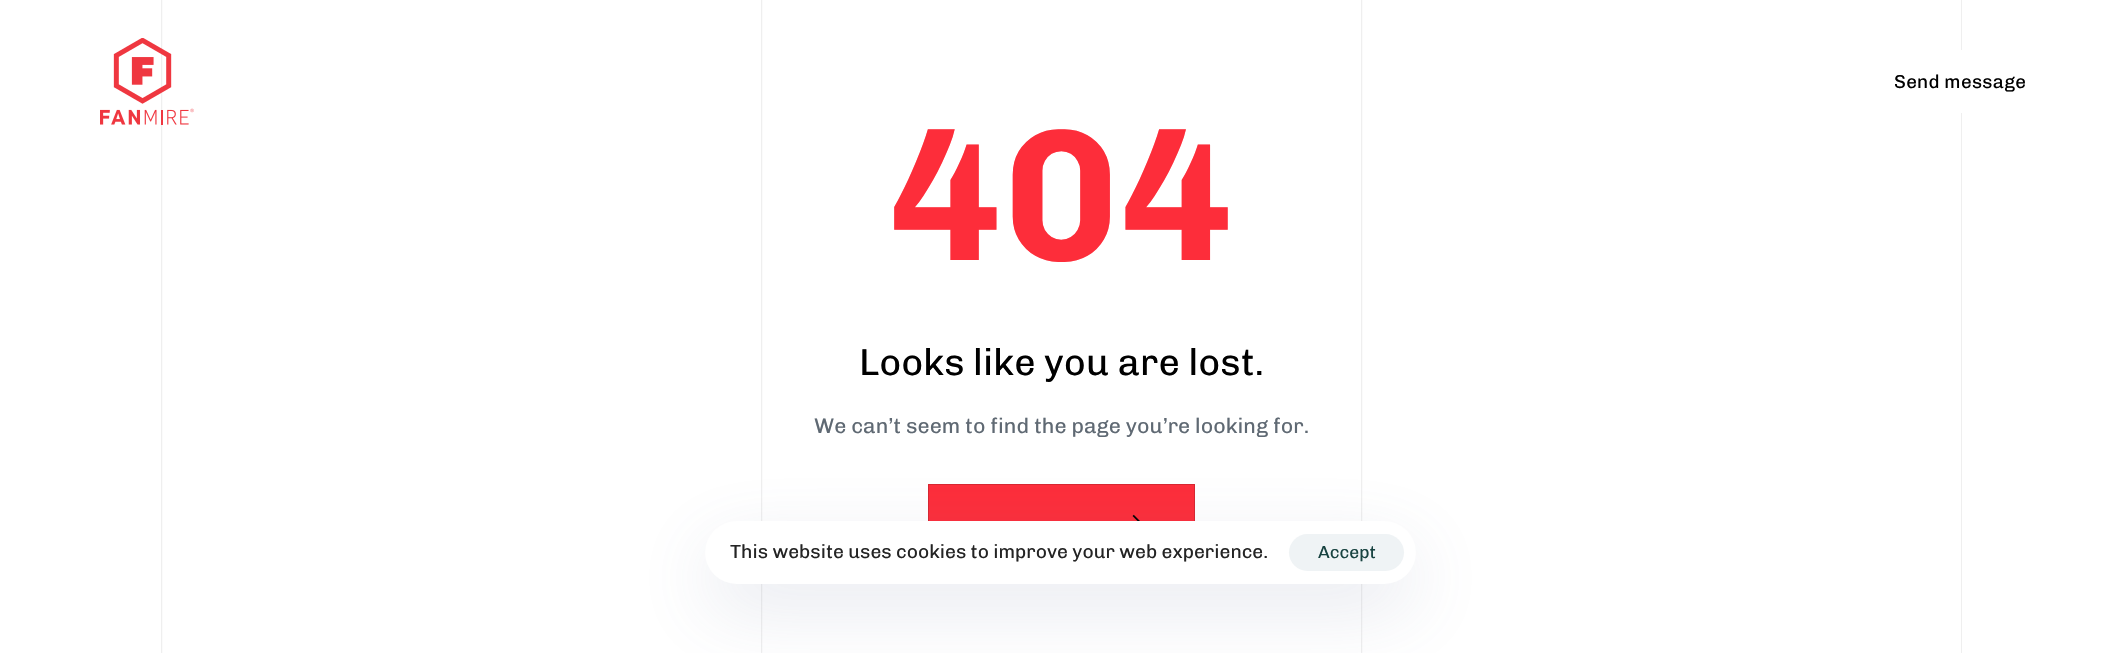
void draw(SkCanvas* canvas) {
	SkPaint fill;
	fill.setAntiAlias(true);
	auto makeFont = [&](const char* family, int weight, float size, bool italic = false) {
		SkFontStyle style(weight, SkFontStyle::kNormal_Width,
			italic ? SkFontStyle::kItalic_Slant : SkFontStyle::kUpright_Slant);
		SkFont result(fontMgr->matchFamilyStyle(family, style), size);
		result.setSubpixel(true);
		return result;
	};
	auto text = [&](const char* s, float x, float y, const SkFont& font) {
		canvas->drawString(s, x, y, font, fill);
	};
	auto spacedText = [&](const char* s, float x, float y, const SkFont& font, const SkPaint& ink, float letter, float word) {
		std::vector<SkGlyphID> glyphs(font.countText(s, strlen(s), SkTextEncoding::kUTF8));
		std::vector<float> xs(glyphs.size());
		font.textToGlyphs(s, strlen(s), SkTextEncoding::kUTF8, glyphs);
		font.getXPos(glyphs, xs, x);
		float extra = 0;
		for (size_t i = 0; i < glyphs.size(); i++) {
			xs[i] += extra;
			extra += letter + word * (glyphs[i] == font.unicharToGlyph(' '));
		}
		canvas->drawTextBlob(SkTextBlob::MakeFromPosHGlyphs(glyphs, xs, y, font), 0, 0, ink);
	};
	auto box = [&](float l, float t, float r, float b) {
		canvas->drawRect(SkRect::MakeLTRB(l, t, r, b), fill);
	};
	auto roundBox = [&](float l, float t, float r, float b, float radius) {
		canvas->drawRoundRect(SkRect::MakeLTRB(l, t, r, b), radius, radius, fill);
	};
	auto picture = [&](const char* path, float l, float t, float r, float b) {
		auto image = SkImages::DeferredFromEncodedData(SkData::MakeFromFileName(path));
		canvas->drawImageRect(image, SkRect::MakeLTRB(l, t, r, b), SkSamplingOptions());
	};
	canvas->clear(0xFFFFFFFF);
	picture("image1.png", 161, 0, 1962, 653);
	picture("image0.png", 100, 38, 194, 125);
	fill.setColor(0xFFFFFFFF);
	roundBox(1865, 50, 2054, 113, 5);
	fill.setColor(0xFFFD2D3A);
	box(929, 485, 1194, 521);
	fill.setStyle(SkPaint::kStroke_Style);
	fill.setStrokeWidth(1);
	fill.setColor(0xFFD72631);
	canvas->drawRect(SkRect::MakeLTRB(928.5f, 484.5f, 1194.5f, 560.5f), fill);
	picture("image2.png", 1132, 514, 1140, 521);
	fill.setStyle(SkPaint::kFill_Style);
	fill.setColor(0x265C6B95);
	fill.setMaskFilter(SkMaskFilter::MakeBlur(kNormal_SkBlurStyle, 37.5f));
	canvas->drawRoundRect(SkRect::MakeLTRB(705, 546, 1416, 609), 31.5f, 31.5f, fill);
	fill.setMaskFilter(nullptr);
	fill.setColor(0xFFFFFFFF);
	roundBox(705, 521, 1416, 584, 31.5f);
	fill.setColor(0xFFEFF3F5);
	roundBox(1289, 534, 1404, 571, 18.5f);
	auto font1 = makeFont("Chivo", 400, 18.75f);
	fill.setColor(0xFF000000);
	spacedText("Send message", 1894, 88, font1, fill, 0.25f, 0);
	auto font2 = makeFont("Chivo", 700, 188);
	fill.setColor(0xFFFD2D3A);
	text("404", 888, 260, font2);
	auto font3 = makeFont("Chivo", 400, 37.5f);
	fill.setColor(0xFF000000);
	text("Looks like you are lost.", 859, 375, font3);
	auto font4 = makeFont("Chivo", 400, 21.25f);
	fill.setColor(0xFF5F6973);
	text("We can’t seem to find the page you’re looking for.", 814, 433, font4);
	auto font5 = makeFont("Chivo", 400, 19.1f);
	fill.setColor(0xFF242424);
	text("This website uses cookies to improve your web experience.", 730, 558, font5);
	auto font6 = makeFont("Chivo", 400, 17.5f);
	fill.setColor(0xFF184341);
	text("Accept", 1318, 558, font6);
}
